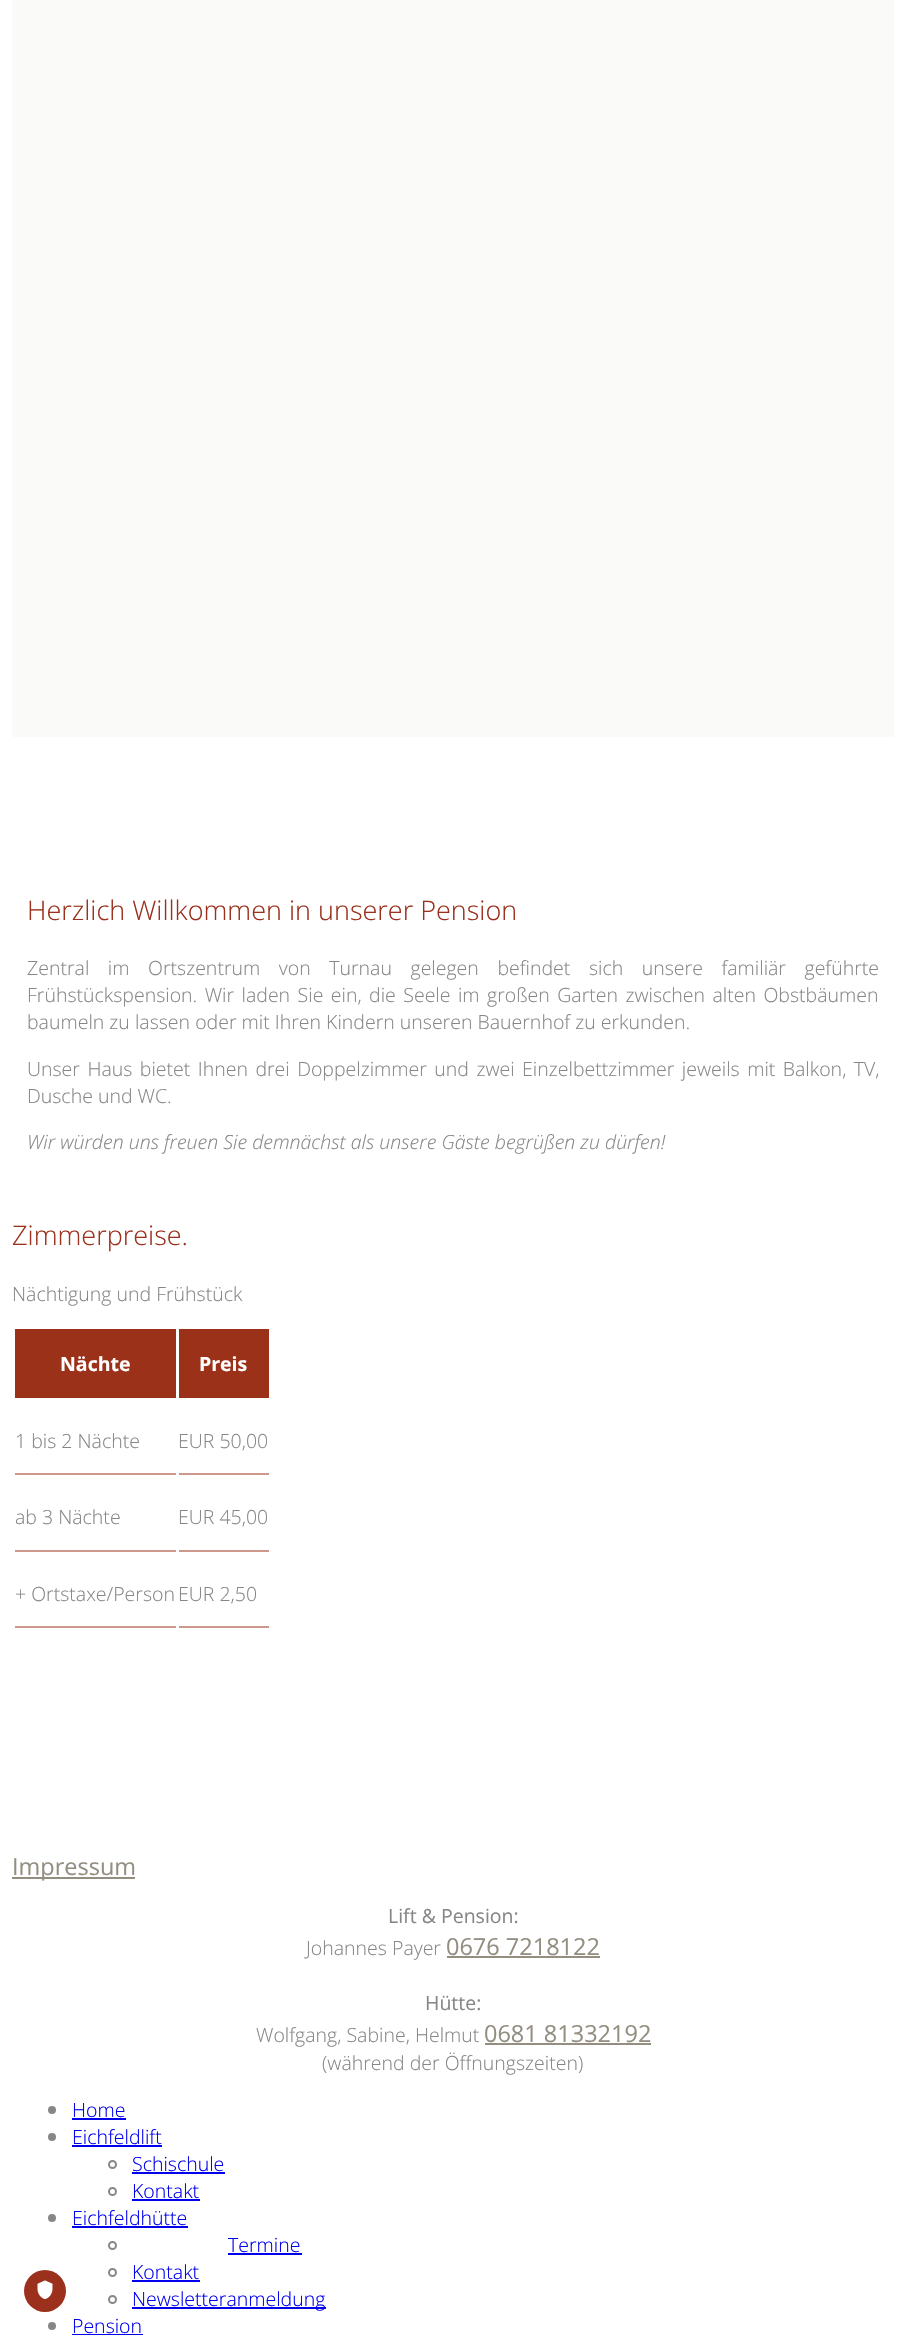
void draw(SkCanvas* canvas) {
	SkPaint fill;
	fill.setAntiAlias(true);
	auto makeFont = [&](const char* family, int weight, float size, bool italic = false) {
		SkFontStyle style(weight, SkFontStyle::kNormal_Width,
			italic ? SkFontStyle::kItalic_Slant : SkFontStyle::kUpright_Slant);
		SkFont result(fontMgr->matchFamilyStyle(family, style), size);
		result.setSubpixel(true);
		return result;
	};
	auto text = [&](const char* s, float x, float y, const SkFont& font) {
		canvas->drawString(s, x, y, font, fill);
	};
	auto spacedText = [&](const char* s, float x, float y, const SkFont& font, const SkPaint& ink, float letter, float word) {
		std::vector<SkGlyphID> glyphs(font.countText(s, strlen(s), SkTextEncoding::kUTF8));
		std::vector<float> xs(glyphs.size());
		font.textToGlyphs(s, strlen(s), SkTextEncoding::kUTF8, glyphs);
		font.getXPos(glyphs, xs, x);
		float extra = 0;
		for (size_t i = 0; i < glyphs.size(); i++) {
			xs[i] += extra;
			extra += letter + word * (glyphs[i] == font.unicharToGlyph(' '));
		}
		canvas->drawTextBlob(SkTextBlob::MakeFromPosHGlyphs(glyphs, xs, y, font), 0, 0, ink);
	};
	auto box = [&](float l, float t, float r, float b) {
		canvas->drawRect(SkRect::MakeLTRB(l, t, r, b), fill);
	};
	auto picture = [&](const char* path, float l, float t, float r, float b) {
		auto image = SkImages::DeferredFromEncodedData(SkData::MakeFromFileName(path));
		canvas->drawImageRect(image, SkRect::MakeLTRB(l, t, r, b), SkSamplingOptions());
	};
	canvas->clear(0xFFFFFFFF);
	fill.setColor(0xFFFAFAF8);
	box(12, 0, 894, 737);
	fill.setColor(0xFF9C3119);
	box(15, 1329, 176, 1398);
	box(179, 1329, 269, 1398);
	fill.setColor(0xFFCE988C);
	box(15, 1473, 176, 1475);
	box(179, 1473, 269, 1475);
	box(15, 1550, 176, 1552);
	box(179, 1550, 269, 1552);
	box(15, 1626, 176, 1628);
	box(179, 1626, 269, 1628);
	fill.setColor(0xFF948E81);
	box(12, 1877, 135, 1879);
	box(447, 1956, 600, 1958);
	box(485, 2043, 651, 2045);
	fill.setColor(0xFF9B301C);
	canvas->drawCircle(45, 2291, 21, fill);
	picture("image0.png", 37, 2280, 53, 2300);
	fill.setColor(0xFF878787);
	canvas->drawCircle(52, 2110, 4, fill);
	fill.setColor(0xFF0000EE);
	box(72, 2118, 126, 2120);
	fill.setColor(0xFF878787);
	canvas->drawCircle(52, 2137, 4, fill);
	fill.setColor(0xFF0000EE);
	box(72, 2145, 162, 2147);
	fill.setStyle(SkPaint::kStroke_Style);
	fill.setStrokeWidth(2);
	fill.setColor(0xFF878787);
	canvas->drawCircle(112.5f, 2164.5f, 3.5f, fill);
	fill.setStyle(SkPaint::kFill_Style);
	fill.setColor(0xFF0000EE);
	box(132, 2172, 225, 2174);
	fill.setStyle(SkPaint::kStroke_Style);
	fill.setColor(0xFF878787);
	canvas->drawCircle(112.5f, 2191.5f, 3.5f, fill);
	fill.setStyle(SkPaint::kFill_Style);
	fill.setColor(0xFF0000EE);
	box(132, 2199, 200, 2201);
	fill.setColor(0xFF878787);
	canvas->drawCircle(52, 2218, 4, fill);
	fill.setColor(0xFF0000EE);
	box(72, 2226, 188, 2228);
	fill.setStyle(SkPaint::kStroke_Style);
	fill.setColor(0xFF878787);
	canvas->drawCircle(112.5f, 2245.5f, 3.5f, fill);
	fill.setStyle(SkPaint::kFill_Style);
	fill.setColor(0xFF0000EE);
	box(228, 2253, 302, 2255);
	fill.setStyle(SkPaint::kStroke_Style);
	fill.setColor(0xFF878787);
	canvas->drawCircle(112.5f, 2272.5f, 3.5f, fill);
	fill.setStyle(SkPaint::kFill_Style);
	fill.setColor(0xFF0000EE);
	box(132, 2280, 200, 2282);
	fill.setStyle(SkPaint::kStroke_Style);
	fill.setColor(0xFF878787);
	canvas->drawCircle(112.5f, 2299.5f, 3.5f, fill);
	fill.setStyle(SkPaint::kFill_Style);
	fill.setColor(0xFF0000EE);
	box(132, 2307, 326, 2309);
	fill.setColor(0xFF878787);
	canvas->drawCircle(52, 2326, 4, fill);
	fill.setColor(0xFF0000EE);
	box(72, 2334, 143, 2335);
	auto font1 = makeFont("Open Sans", 300, 27);
	fill.setColor(0xFF9B301C);
	text("Herzlich Willkommen in unserer Pension", 27, 920, font1);
	auto font2 = makeFont("Open Sans", 300, 19.5f);
	fill.setColor(0xFF878787);
	spacedText("Zentral im Ortszentrum von Turnau gelegen befindet sich unsere familiär geführte", 27, 975, font2, fill, 0, 13.5f);
	spacedText("Frühstückspension. Wir laden Sie ein, die Seele im großen Garten zwischen alten Obstbäumen", 27, 1002, font2, fill, 0, 2.4f);
	text("baumeln zu lassen oder mit Ihren Kindern unseren Bauernhof zu erkunden.", 27, 1029, font2);
	spacedText("Unser Haus bietet Ihnen drei Doppelzimmer und zwei Einzelbettzimmer jeweils mit Balkon, TV,", 27, 1076, font2, fill, 0, 2.4f);
	text("Dusche und WC.", 27, 1103, font2);
	auto font3 = makeFont("Open Sans", 300, 19.5f, true);
	text("Wir würden uns freuen Sie demnächst als unsere Gäste begrüßen zu dürfen!", 27, 1149, font3);
	fill.setColor(0xFF9B301C);
	text("Zimmerpreise.", 12, 1245, font1);
	fill.setColor(0xFF878787);
	text("Nächtigung und Frühstück", 12, 1301, font2);
	auto font4 = makeFont("Open Sans", 700, 19.5f);
	fill.setColor(0xFFFFFFFF);
	text("Nächte", 60, 1371, font4);
	text("Preis", 199, 1371, font4);
	fill.setColor(0xFF878787);
	text("1 bis 2 Nächte", 15, 1448, font2);
	text("EUR 50,00", 178, 1448, font2);
	text("ab 3 Nächte", 15, 1524, font2);
	text("EUR 45,00", 178, 1524, font2);
	text("+ Ortstaxe/Person", 15, 1601, font2);
	text("EUR 2,50", 178, 1601, font2);
	auto font5 = makeFont("Open Sans", 400, 23.5f);
	fill.setColor(0xFF948E81);
	text("Impressum", 12, 1875, font5);
	auto font6 = makeFont("Open Sans", 400, 19.5f);
	fill.setColor(0xFF878787);
	text("Lift & Pension:", 388, 1923, font6);
	text("Johannes Payer", 306, 1955, font2);
	fill.setColor(0xFF948E81);
	text("0676 7218122", 446, 1955, font5);
	fill.setColor(0xFF878787);
	text("Hütte:", 425, 2010, font6);
	text("Wolfgang, Sabine, Helmut", 256, 2042, font2);
	fill.setColor(0xFF948E81);
	text("0681 81332192", 484, 2042, font5);
	fill.setColor(0xFF878787);
	text("(während der Öffnungszeiten)", 322, 2070, font2);
	fill.setColor(0xFF0000EE);
	text("Home", 72, 2117, font2);
	text("Eichfeldlift", 72, 2144, font2);
	text("Schischule", 132, 2171, font2);
	text("Kontakt", 132, 2198, font2);
	text("Eichfeldhütte", 72, 2225, font2);
	text("Termine", 228, 2252, font2);
	text("Kontakt", 132, 2279, font2);
	text("Newsletteranmeldung", 132, 2306, font2);
	text("Pension", 72, 2333, font2);
}
